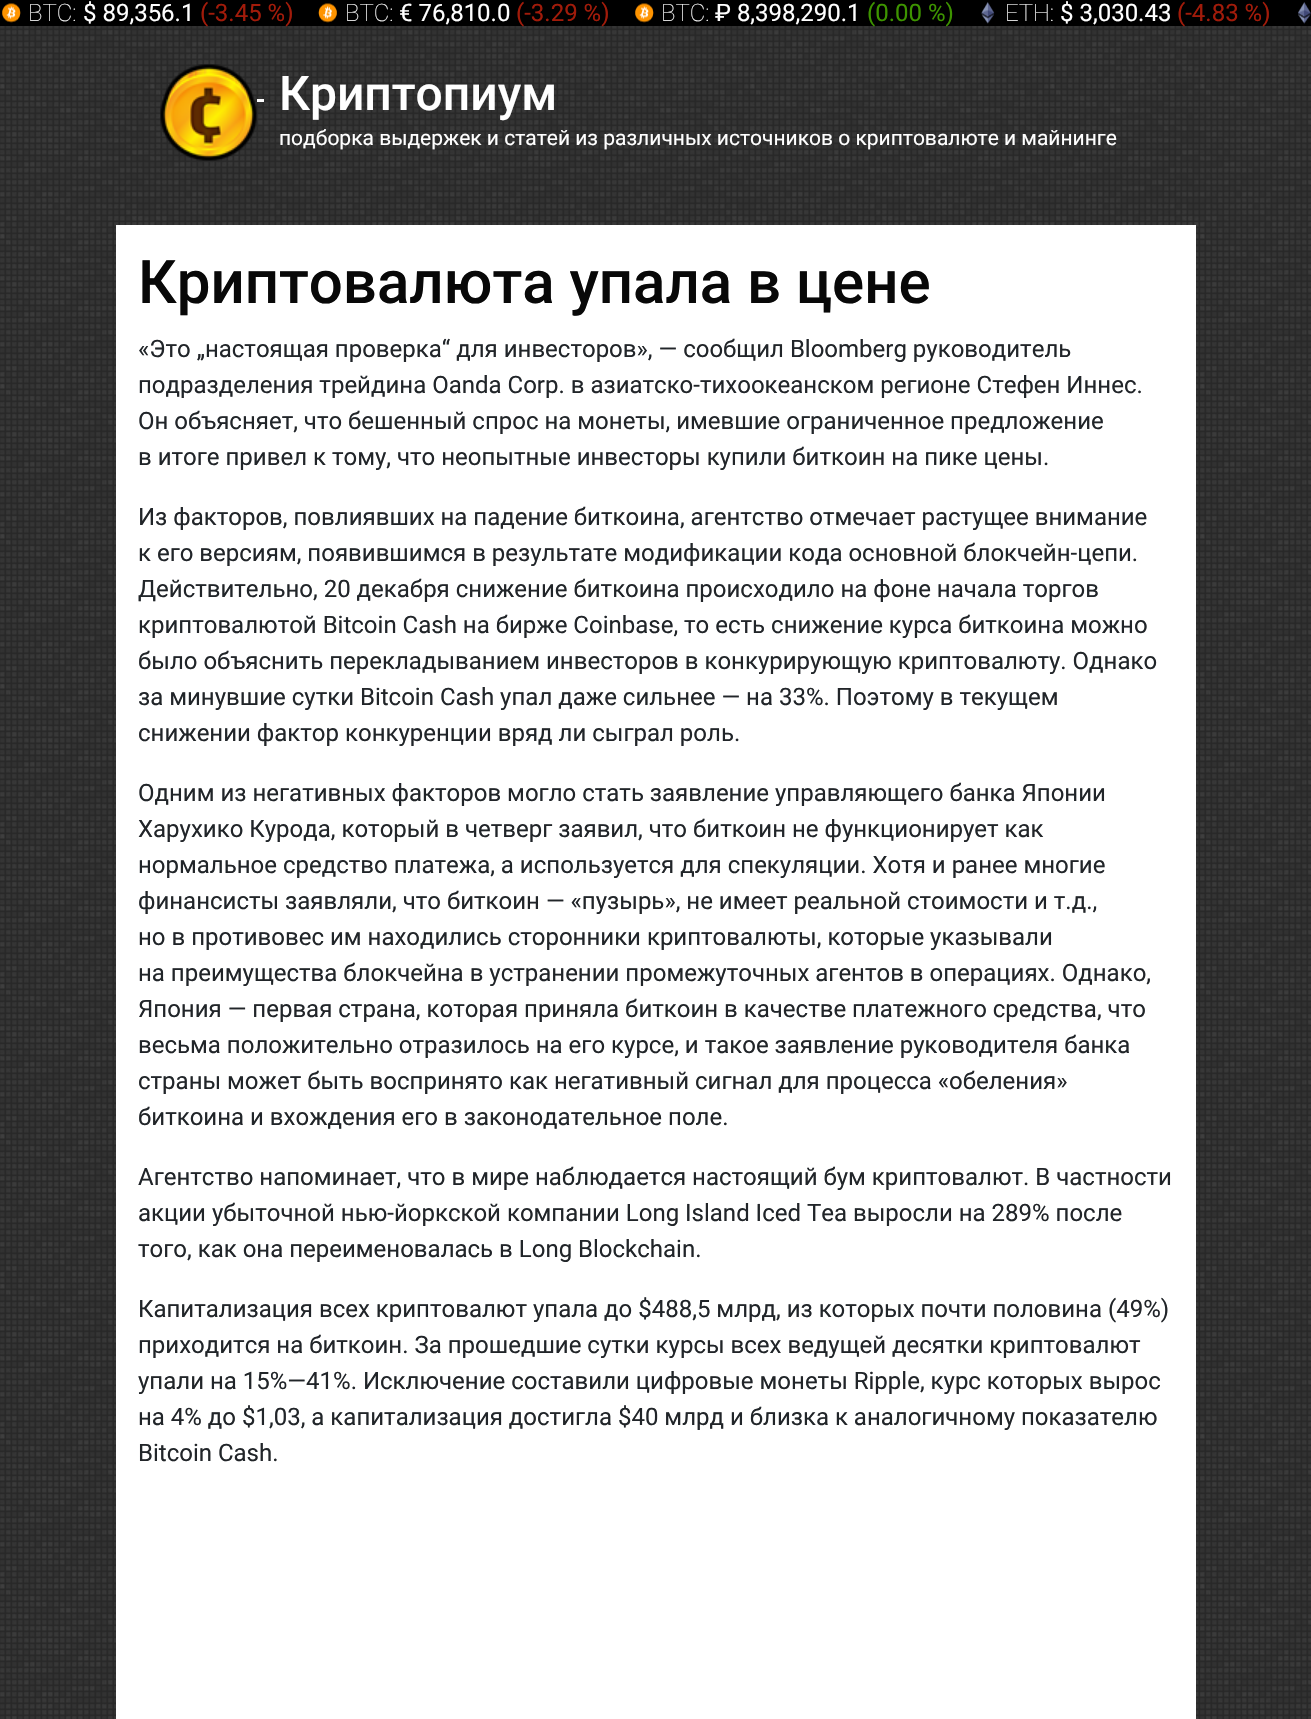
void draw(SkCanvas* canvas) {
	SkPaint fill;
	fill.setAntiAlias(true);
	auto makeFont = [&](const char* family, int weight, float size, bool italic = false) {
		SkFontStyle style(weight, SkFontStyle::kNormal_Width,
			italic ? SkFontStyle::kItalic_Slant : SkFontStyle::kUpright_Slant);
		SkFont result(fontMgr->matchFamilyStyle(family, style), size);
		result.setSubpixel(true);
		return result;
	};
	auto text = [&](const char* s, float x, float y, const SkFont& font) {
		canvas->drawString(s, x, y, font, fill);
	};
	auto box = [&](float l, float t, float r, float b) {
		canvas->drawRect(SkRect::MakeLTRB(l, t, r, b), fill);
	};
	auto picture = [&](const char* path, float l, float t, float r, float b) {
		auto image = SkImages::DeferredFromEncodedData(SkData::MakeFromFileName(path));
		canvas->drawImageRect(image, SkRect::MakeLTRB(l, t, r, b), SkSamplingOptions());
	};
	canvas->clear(0xFFFFFFFF);
	picture("image0.png", 0, 26, 1311, 1719);
	fill.setColor(0xFF000000);
	box(0, 0, 1311, 26);
	picture("image1.png", 2, 3, 21, 23);
	picture("image2.png", 318, 3, 337, 23);
	picture("image1.png", 635, 3, 654, 23);
	picture("image3.png", 981, 2, 995, 24);
	picture("image4.png", 1298, 2, 1311, 24);
	picture("image5.png", 160, 64, 257, 161);
	fill.setColor(0xFFFFFFFF);
	box(257, 99, 264, 102);
	box(116, 225, 1196, 1719);
	auto font1 = makeFont("Roboto", 100, 24);
	text("BTC:", 28, 21, font1);
	auto font2 = makeFont("Roboto", 400, 24);
	text("$ 89,356.1", 83, 21, font2);
	fill.setColor(0xFFA11B0A);
	text("(-3.45 %)", 200, 21, font2);
	fill.setColor(0xFFFFFFFF);
	text("BTC:", 345, 21, font1);
	text("€ 76,810.0", 399, 21, font2);
	fill.setColor(0xFFA11B0A);
	text("(-3.29 %)", 516, 21, font2);
	fill.setColor(0xFFFFFFFF);
	text("BTC:", 661, 21, font1);
	text("₽ 8,398,290.1", 715, 21, font2);
	fill.setColor(0xFF3D9400);
	text("(0.00 %)", 867, 21, font2);
	fill.setColor(0xFFFFFFFF);
	text("ETH:", 1005, 21, font1);
	text("$ 3,030.43", 1060, 21, font2);
	fill.setColor(0xFFA11B0A);
	text("(-4.83 %)", 1177, 21, font2);
	auto font3 = makeFont("Roboto", 500, 48);
	fill.setColor(0xFFFFFFFF);
	text("Криптопиум", 279, 110, font3);
	auto font4 = makeFont("Roboto", 400, 21);
	text("подборка выдержек и статей из различных источников о криптовалюте и майнинге", 279, 145, font4);
	auto font5 = makeFont("Roboto", 500, 60);
	fill.setColor(0xFF080808);
	text("Криптовалюта упала в цене", 138, 303, font5);
	fill.setColor(0xFF212529);
	text("«Это „настоящая проверка“ для инвесторов», — сообщил Bloomberg руководитель", 138, 357, font2);
	text("подразделения трейдина Oanda Corp. в азиатско-тихоокеанском регионе Стефен Иннес.", 138, 393, font2);
	text("Он объясняет, что бешенный спрос на монеты, имевшие ограниченное предложение", 138, 429, font2);
	text("в итоге привел к тому, что неопытные инвесторы купили биткоин на пике цены.", 138, 465, font2);
	text("Из факторов, повлиявших на падение биткоина, агентство отмечает растущее внимание", 138, 525, font2);
	text("к его версиям, появившимся в результате модификации кода основной блокчейн-цепи.", 138, 561, font2);
	text("Действительно, 20 декабря снижение биткоина происходило на фоне начала торгов", 138, 597, font2);
	text("криптовалютой Bitcoin Cash на бирже Coinbase, то есть снижение курса биткоина можно", 138, 633, font2);
	text("было объяснить перекладыванием инвесторов в конкурирующую криптовалюту. Однако", 138, 669, font2);
	text("за минувшие сутки Bitcoin Cash упал даже сильнее — на 33%. Поэтому в текущем", 138, 705, font2);
	text("снижении фактор конкуренции вряд ли сыграл роль.", 138, 741, font2);
	text("Одним из негативных факторов могло стать заявление управляющего банка Японии", 138, 801, font2);
	text("Харухико Курода, который в четверг заявил, что биткоин не функционирует как", 138, 837, font2);
	text("нормальное средство платежа, а используется для спекуляции. Хотя и ранее многие", 138, 873, font2);
	text("финансисты заявляли, что биткоин — «пузырь», не имеет реальной стоимости и т.д.,", 138, 909, font2);
	text("но в противовес им находились сторонники криптовалюты, которые указывали", 138, 945, font2);
	text("на преимущества блокчейна в устранении промежуточных агентов в операциях. Однако,", 138, 981, font2);
	text("Япония — первая страна, которая приняла биткоин в качестве платежного средства, что", 138, 1017, font2);
	text("весьма положительно отразилось на его курсе, и такое заявление руководителя банка", 138, 1053, font2);
	text("страны может быть воспринято как негативный сигнал для процесса «обеления»", 138, 1089, font2);
	text("биткоина и вхождения его в законодательное поле.", 138, 1125, font2);
	text("Агентство напоминает, что в мире наблюдается настоящий бум криптовалют. В частности", 138, 1185, font2);
	text("акции убыточной нью-йоркской компании Long Island Iced Tea выросли на 289% после", 138, 1221, font2);
	text("того, как она переименовалась в Long Blockchain.", 138, 1257, font2);
	text("Капитализация всех криптовалют упала до $488,5 млрд, из которых почти половина (49%)", 138, 1317, font2);
	text("приходится на биткоин. За прошедшие сутки курсы всех ведущей десятки криптовалют", 138, 1353, font2);
	text("упали на 15%—41%. Исключение составили цифровые монеты Ripple, курс которых вырос", 138, 1389, font2);
	text("на 4% до $1,03, а капитализация достигла $40 млрд и близка к аналогичному показателю", 138, 1425, font2);
	text("Bitcoin Cash.", 138, 1461, font2);
}
